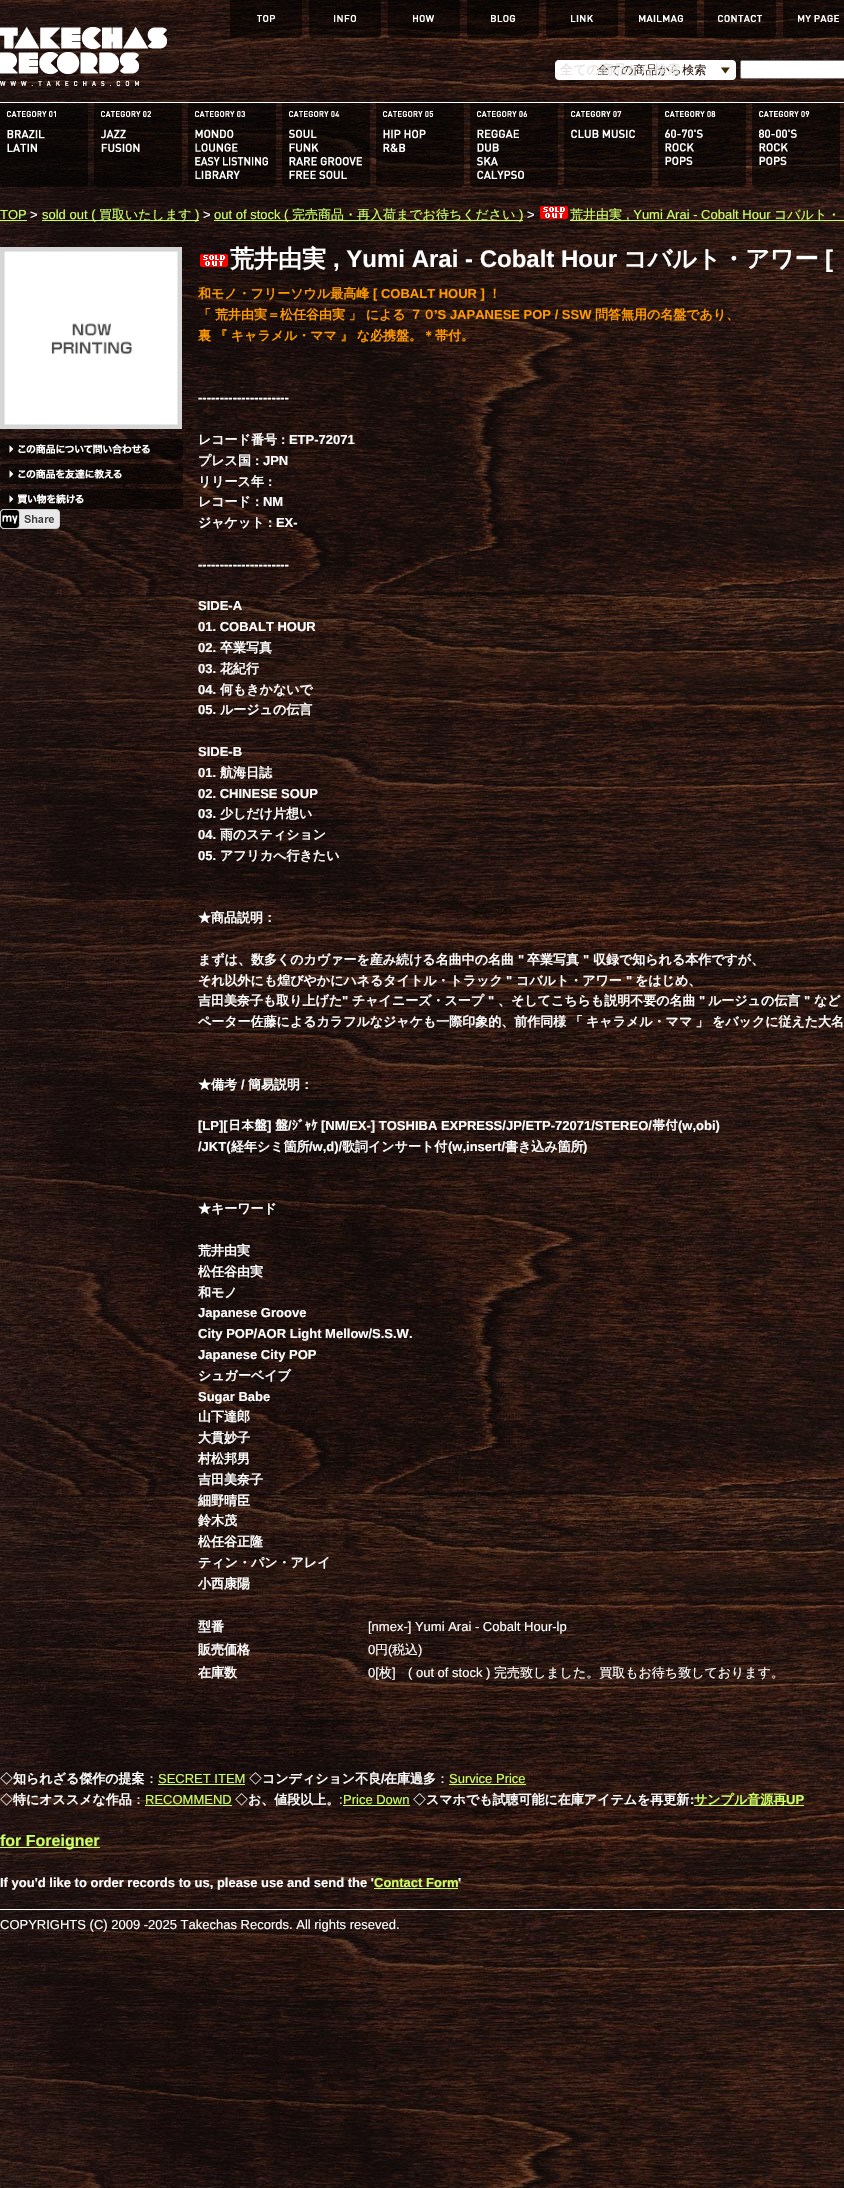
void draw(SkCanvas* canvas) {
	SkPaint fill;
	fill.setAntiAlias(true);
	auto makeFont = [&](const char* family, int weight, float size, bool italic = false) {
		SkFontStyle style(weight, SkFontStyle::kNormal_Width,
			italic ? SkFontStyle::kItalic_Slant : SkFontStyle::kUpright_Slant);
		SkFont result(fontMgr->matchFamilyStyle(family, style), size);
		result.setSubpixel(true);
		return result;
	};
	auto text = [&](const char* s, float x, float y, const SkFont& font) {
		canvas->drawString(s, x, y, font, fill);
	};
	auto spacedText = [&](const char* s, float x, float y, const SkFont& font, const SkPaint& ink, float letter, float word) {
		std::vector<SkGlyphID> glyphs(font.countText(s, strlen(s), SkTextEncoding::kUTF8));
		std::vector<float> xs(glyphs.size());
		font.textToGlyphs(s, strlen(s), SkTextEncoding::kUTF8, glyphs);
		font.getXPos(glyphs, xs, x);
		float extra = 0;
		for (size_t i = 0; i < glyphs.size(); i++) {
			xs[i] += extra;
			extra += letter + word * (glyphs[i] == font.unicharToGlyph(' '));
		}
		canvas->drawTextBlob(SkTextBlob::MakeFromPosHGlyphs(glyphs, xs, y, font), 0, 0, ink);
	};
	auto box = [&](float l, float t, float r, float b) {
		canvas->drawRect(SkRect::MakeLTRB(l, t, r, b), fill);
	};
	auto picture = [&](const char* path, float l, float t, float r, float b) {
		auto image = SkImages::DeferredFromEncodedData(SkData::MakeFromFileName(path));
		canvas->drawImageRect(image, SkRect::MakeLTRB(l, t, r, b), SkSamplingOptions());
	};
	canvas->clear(0xFFFFFFFF);
	picture("image0.png", 0, 0, 844, 2188);
	picture("image1.png", 0, 27, 167, 86);
	picture("image2.png", 230, 0, 302, 38);
	picture("image3.png", 309, 0, 381, 38);
	picture("image4.png", 388, 0, 460, 38);
	picture("image5.png", 467, 0, 539, 38);
	picture("image6.png", 546, 0, 618, 38);
	picture("image7.png", 625, 0, 697, 38);
	picture("image8.png", 704, 0, 776, 38);
	picture("image9.png", 783, 0, 844, 38);
	fill.setColor(0xFFFFFFFF);
	canvas->drawRoundRect(SkRect::MakeLTRB(740.5f, 60.5f, 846.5f, 78.5f), 1.5f, 1.5f, fill);
	fill.setStyle(SkPaint::kStroke_Style);
	fill.setStrokeWidth(1);
	fill.setColor(0xFF767676);
	canvas->drawRoundRect(SkRect::MakeLTRB(740.5f, 60.5f, 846.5f, 78.5f), 1.5f, 1.5f, fill);
	picture("image10.png", 555, 60, 736, 80);
	fill.setStyle(SkPaint::kFill_Style);
	fill.setColor(0xFFFFFFFF);
	box(0, 102, 844, 103);
	picture("image11.png", 0, 103, 88, 187);
	picture("image12.png", 94, 103, 182, 187);
	picture("image13.png", 188, 103, 276, 187);
	picture("image14.png", 282, 103, 370, 187);
	picture("image15.png", 376, 103, 464, 187);
	picture("image16.png", 470, 103, 558, 187);
	picture("image17.png", 564, 103, 652, 187);
	picture("image18.png", 658, 103, 746, 187);
	picture("image19.png", 752, 103, 840, 187);
	fill.setColor(0xFFCCFF66);
	box(0, 220, 27, 221);
	box(42, 220, 199, 221);
	box(214, 220, 523, 221);
	picture("image20.png", 540, 206, 568, 219);
	box(570, 220, 844, 221);
	picture("image21.png", 0, 247, 182, 429);
	picture("image22.png", 0, 439, 183, 459);
	picture("image23.png", 0, 464, 183, 484);
	picture("image24.png", 0, 489, 183, 509);
	picture("image25.png", 0, 509, 60, 529);
	picture("image26.png", 200, 254, 228, 267);
	box(158, 1784, 245, 1785);
	box(449, 1784, 526, 1785);
	box(145, 1805, 232, 1806);
	box(343, 1805, 410, 1806);
	box(694, 1805, 804, 1806);
	box(0, 1847, 100, 1848);
	box(374, 1888, 458, 1889);
	fill.setColor(0xFFFFFFFF);
	box(0, 1909, 844, 1910);
	auto font1 = makeFont("WenQuanYi Zen Hei", 500, 12);
	fill.setColor(0xFF2E1914);
	text("全ての商品から検索", 597, 74, font1);
	auto font2 = makeFont("WenQuanYi Zen Hei", 500, 13.25f);
	fill.setColor(0xFFE3E0DF);
	text("全ての商品から検索", 560, 74, font2);
	auto font3 = makeFont("Liberation Sans", 400, 13);
	fill.setColor(0xFFCCFF66);
	text("TOP", 0, 219, font3);
	fill.setColor(0xFFFFFFFF);
	text(">", 30, 219, font3);
	fill.setColor(0xFFCCFF66);
	text("sold out (", 42, 219, font3);
	auto font4 = makeFont("WenQuanYi Zen Hei", 500, 13);
	text("買取いたします", 99, 219, font4);
	text(")", 195, 219, font3);
	fill.setColor(0xFFFFFFFF);
	text(">", 203, 219, font3);
	fill.setColor(0xFFCCFF66);
	text("out of stock (", 214, 219, font3);
	text("完売商品・再入荷までお待ちください", 292, 219, font4);
	text(")", 519, 219, font3);
	fill.setColor(0xFFFFFFFF);
	text(">", 527, 219, font3);
	fill.setColor(0xFFCCFF66);
	text("荒井由実", 570, 219, font4);
	text(", Yumi Arai - Cobalt Hour", 626, 219, font3);
	text("コバルト・", 774, 219, font4);
	auto font5 = makeFont("WenQuanYi Zen Hei", 700, 24);
	fill.setColor(0xFFFFFFFF);
	text("荒井由実", 230, 267, font5);
	auto font6 = makeFont("Liberation Sans", 700, 24);
	text(", Yumi Arai - Cobalt Hour", 333, 267, font6);
	text("コバルト・アワー", 623, 267, font5);
	text("[", 825, 267, font6);
	auto font7 = makeFont("WenQuanYi Zen Hei", 700, 13);
	fill.setColor(0xFFFF9900);
	text("和モノ・フリーソウル最高峰", 198, 298, font7);
	auto font8 = makeFont("Liberation Sans", 700, 13);
	text("[ COBALT HOUR ]", 373, 298, font8);
	text("！", 488, 298, font7);
	text("「 荒井由実＝松任谷由実 」 による ７０", 198, 319, font7);
	text("’S JAPANESE POP / SSW", 434, 319, font8);
	text("問答無用の名盤であり、", 595, 319, font7);
	spacedText("裏 『 キャラメル・ママ 』 な必携盤。＊帯付。", 198, 340, font7, fill, 0, -0.5f);
	fill.setColor(0xFFFFFFFF);
	text("---------------------", 198, 402, font8);
	text("レコード番号", 198, 444, font7);
	text(": ETP-72071", 281, 444, font8);
	text("プレス国", 198, 465, font7);
	text(": JPN", 255, 465, font8);
	text("リリース年", 198, 486, font7);
	text(":", 268, 486, font8);
	text("レコード", 198, 506, font7);
	text(": NM", 255, 506, font8);
	text("ジャケット", 198, 527, font7);
	text(": EX-", 268, 527, font8);
	text("---------------------", 198, 569, font8);
	text("SIDE-A", 198, 610, font8);
	text("01. COBALT HOUR", 198, 631, font8);
	text("02.", 198, 652, font8);
	text("卒業写真", 220, 652, font7);
	text("03.", 198, 673, font8);
	text("花紀行", 220, 673, font7);
	text("04.", 198, 694, font8);
	text("何もきかないで", 220, 694, font7);
	text("05.", 198, 714, font8);
	text("ルージュの伝言", 220, 714, font7);
	text("SIDE-B", 198, 756, font8);
	text("01.", 198, 777, font8);
	text("航海日誌", 220, 777, font7);
	text("02. CHINESE SOUP", 198, 798, font8);
	text("03.", 198, 818, font8);
	text("少しだけ片想い", 220, 818, font7);
	text("04.", 198, 839, font8);
	text("雨のスティション", 220, 839, font7);
	text("05.", 198, 860, font8);
	text("アフリカへ行きたい", 220, 860, font7);
	text("★商品説明：", 198, 922, font7);
	text("まずは、数多くのカヴァーを産み続ける名曲中の名曲", 198, 964, font7);
	text("\"", 518, 964, font8);
	text("卒業写真", 527, 964, font7);
	text("\"", 583, 964, font8);
	text("収録で知られる本作ですが、", 593, 964, font7);
	text("それ以外にも煌びやかにハネるタイトル・トラック", 198, 985, font7);
	text("\"", 506, 985, font8);
	text("コバルト・アワー", 516, 985, font7);
	text("\"", 626, 985, font8);
	text("をはじめ、", 635, 985, font7);
	text("吉田美奈子も取り上げた", 198, 1005, font7);
	text("\"", 342, 1005, font8);
	text("チャイニーズ・スープ", 352, 1005, font7);
	text("\"", 488, 1005, font8);
	text("、そしてこちらも説明不要の名曲", 498, 1005, font7);
	text("\"", 699, 1005, font8);
	text("ルージュの伝言", 708, 1005, font7);
	text("\"", 804, 1005, font8);
	text("など", 814, 1005, font7);
	spacedText("ペーター佐藤によるカラフルなジャケも一際印象的、前作同様 「 キャラメル・ママ 」 をバックに従えた大名", 198, 1026, font7, fill, 0, -0.5f);
	text("★備考", 198, 1089, font7);
	text("/", 241, 1089, font8);
	text("簡易説明：", 248, 1089, font7);
	text("[LP][", 198, 1130, font8);
	auto font9 = makeFont("IPAPGothic", 700, 13);
	text("日本盤", 228, 1130, font9);
	text("]", 267, 1130, font8);
	text("盤 ｼﾞｬｹ", 275, 1130, font9);
	text("帯付", 652, 1130, font9);
	text("/", 288, 1130, font8);
	text("[NM/EX-] TOSHIBA EXPRESS/JP/ETP-72071/STEREO/", 321, 1130, font8);
	text("(w,obi)", 678, 1130, font8);
	text("/JKT(", 198, 1151, font8);
	text("経年シミ箇所", 231, 1151, font7);
	text("/w,d)/", 309, 1151, font8);
	text("歌詞インサート付", 342, 1151, font7);
	text("(w,insert/", 448, 1151, font8);
	text("書き込み箇所", 505, 1151, font7);
	text(")", 583, 1151, font8);
	text("★キーワード", 198, 1213, font7);
	text("荒井由実", 198, 1255, font7);
	text("松任谷由実", 198, 1276, font7);
	text("和モノ", 198, 1297, font7);
	text("Japanese Groove", 198, 1317, font8);
	text("City POP/AOR Light Mellow/S.S.W.", 198, 1338, font8);
	text("Japanese City POP", 198, 1359, font8);
	text("シュガーベイブ", 198, 1380, font7);
	text("Sugar Babe", 198, 1401, font8);
	text("山下達郎", 198, 1421, font7);
	text("大貫妙子", 198, 1442, font7);
	text("村松邦男", 198, 1463, font7);
	text("吉田美奈子", 198, 1484, font7);
	text("細野晴臣", 198, 1505, font7);
	text("鈴木茂", 198, 1525, font7);
	text("松任谷正隆", 198, 1546, font7);
	text("ティン・パン・アレイ", 198, 1567, font7);
	text("小西康陽", 198, 1588, font7);
	text("型番", 198, 1631, font7);
	text("[nmex-] Yumi Arai - Cobalt Hour-lp", 368, 1631, font3);
	text("販売価格", 198, 1654, font7);
	text("0", 368, 1654, font3);
	text("円", 375, 1654, font4);
	text("(", 388, 1654, font3);
	text("税込", 392, 1654, font4);
	text(")", 418, 1654, font3);
	text("在庫数", 198, 1677, font7);
	text("0[", 368, 1677, font3);
	text("枚", 379, 1677, font4);
	text("]", 392, 1677, font3);
	text("( out of stock )", 408, 1677, font3);
	text("完売致しました。買取もお待ち致しております。", 494, 1677, font4);
	text("◇", 0, 1783, font4);
	text("知られざる傑作の提案", 13, 1783, font7);
	text("：", 145, 1783, font4);
	fill.setColor(0xFFCCFF66);
	text("SECRET ITEM", 158, 1783, font3);
	fill.setColor(0xFFFFFFFF);
	text("◇", 249, 1783, font4);
	text("コンディション不良", 262, 1783, font7);
	text("/", 381, 1783, font8);
	text("在庫過多", 384, 1783, font7);
	text("：", 436, 1783, font4);
	fill.setColor(0xFFCCFF66);
	text("Survice Price", 449, 1783, font3);
	fill.setColor(0xFFFFFFFF);
	text("◇", 0, 1804, font4);
	text("特にオススメな作品", 13, 1804, font7);
	text("：", 132, 1804, font4);
	fill.setColor(0xFFCCFF66);
	text("RECOMMEND", 145, 1804, font3);
	fill.setColor(0xFFFFFFFF);
	text("◇", 235, 1804, font4);
	text("お、値段以上。", 248, 1804, font7);
	text(":", 339, 1804, font3);
	fill.setColor(0xFFCCFF66);
	text("Price Down", 343, 1804, font3);
	fill.setColor(0xFFFFFFFF);
	text("◇", 413, 1804, font4);
	text("スマホでも試聴可能に在庫アイテムを再更新", 426, 1804, font7);
	text(":", 690, 1804, font8);
	fill.setColor(0xFFCCFF66);
	text("サンプル音源再", 694, 1804, font7);
	text("UP", 786, 1804, font8);
	auto font10 = makeFont("Liberation Sans", 700, 16);
	text("for Foreigner", 0, 1846, font10);
	fill.setColor(0xFFFFFFFF);
	text("If you'd like to order records to us, please use and send the '", 0, 1887, font8);
	fill.setColor(0xFFCCFF66);
	text("Contact Form", 374, 1887, font8);
	fill.setColor(0xFFFFFFFF);
	text("'", 458, 1887, font8);
	text("COPYRIGHTS (C) 2009 -2025 Takechas Records. All rights reseved.", 0, 1929, font3);
}
